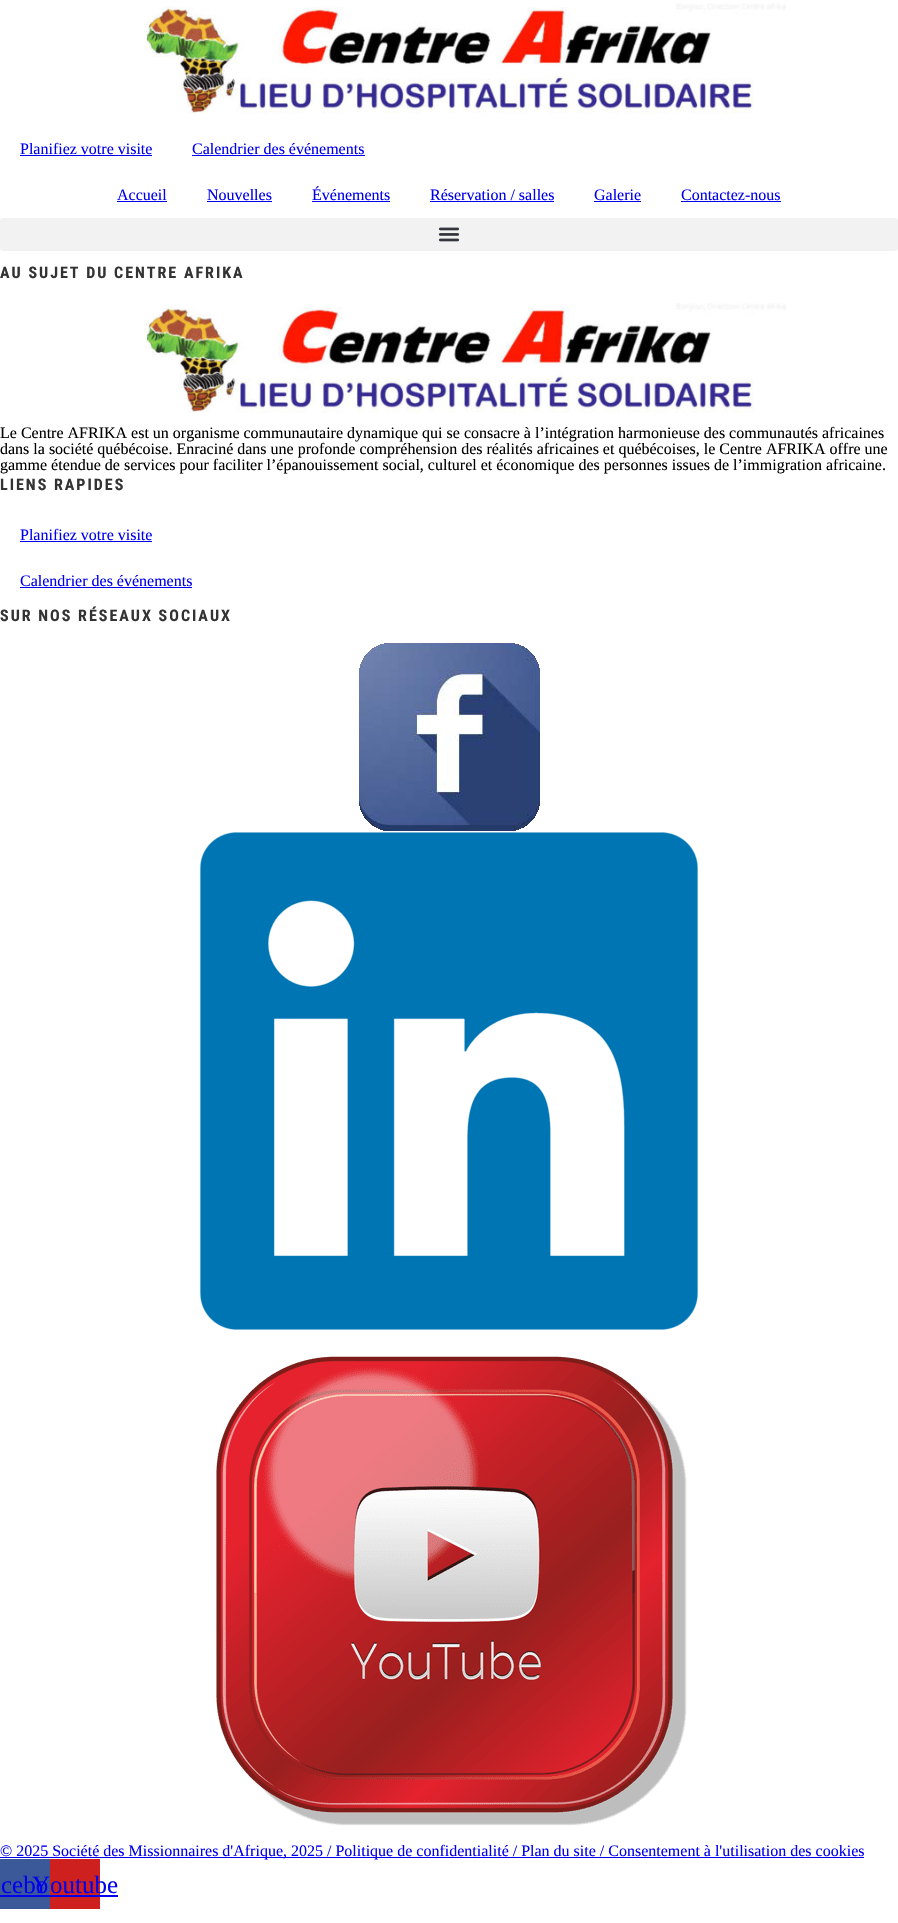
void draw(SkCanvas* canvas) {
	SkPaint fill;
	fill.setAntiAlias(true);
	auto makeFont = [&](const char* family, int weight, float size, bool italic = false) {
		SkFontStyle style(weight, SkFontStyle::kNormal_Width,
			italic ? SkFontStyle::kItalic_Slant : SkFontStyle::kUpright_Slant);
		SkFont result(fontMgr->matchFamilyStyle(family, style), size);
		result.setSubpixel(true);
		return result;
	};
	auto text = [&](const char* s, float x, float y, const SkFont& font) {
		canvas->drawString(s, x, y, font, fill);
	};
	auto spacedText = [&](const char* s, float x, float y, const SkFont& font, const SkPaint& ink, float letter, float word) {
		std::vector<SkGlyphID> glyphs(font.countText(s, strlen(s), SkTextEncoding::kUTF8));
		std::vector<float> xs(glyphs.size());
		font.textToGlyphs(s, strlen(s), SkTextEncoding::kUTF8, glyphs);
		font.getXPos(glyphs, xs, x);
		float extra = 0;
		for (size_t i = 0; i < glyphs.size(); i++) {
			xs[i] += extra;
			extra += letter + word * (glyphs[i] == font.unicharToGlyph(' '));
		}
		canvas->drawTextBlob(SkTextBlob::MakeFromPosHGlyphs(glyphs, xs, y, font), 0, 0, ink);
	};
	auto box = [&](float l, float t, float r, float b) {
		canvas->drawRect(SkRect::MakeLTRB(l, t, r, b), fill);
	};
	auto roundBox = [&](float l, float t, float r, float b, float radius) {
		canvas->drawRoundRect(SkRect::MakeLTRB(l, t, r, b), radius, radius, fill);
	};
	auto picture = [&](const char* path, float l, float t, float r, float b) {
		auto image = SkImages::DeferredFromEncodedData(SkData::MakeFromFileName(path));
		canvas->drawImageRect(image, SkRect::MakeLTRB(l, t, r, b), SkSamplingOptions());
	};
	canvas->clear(0xFFFFFFFF);
	picture("image0.png", 144, 3, 786, 114);
	fill.setColor(0xFF0000EE);
	box(20, 155, 152, 156);
	box(192, 155, 365, 156);
	box(117, 201, 167, 202);
	box(207, 201, 272, 202);
	box(312, 201, 390, 202);
	box(430, 201, 554, 202);
	box(594, 201, 641, 202);
	box(681, 201, 781, 202);
	fill.setColor(0xFFF2F2F2);
	roundBox(0, 218, 898, 251, 3);
	picture("image1.png", 438, 227, 460, 242);
	picture("image2.png", 144, 303, 786, 413);
	fill.setColor(0xFF0000EE);
	box(20, 541, 152, 542);
	box(20, 587, 192, 588);
	picture("image3.png", 359, 643, 540, 831);
	picture("image4.png", 199, 832, 699, 1330);
	picture("image5.png", 214, 1356, 687, 1826);
	box(0, 1857, 864, 1858);
	auto font1 = makeFont("Liberation Serif", 400, 16);
	text("Planifiez votre visite", 20, 154, font1);
	text("Calendrier des événements", 192, 154, font1);
	text("Accueil", 117, 200, font1);
	text("Nouvelles", 207, 200, font1);
	text("Événements", 312, 200, font1);
	text("Réservation / salles", 430, 200, font1);
	text("Galerie", 594, 200, font1);
	text("Contactez-nous", 681, 200, font1);
	auto font2 = makeFont("Roboto Condensed", 700, 16);
	fill.setColor(0xFF333333);
	spacedText("AU SUJET DU CENTRE AFRIKA", 0, 278, font2, fill, 2, 0);
	fill.setColor(0xFF000000);
	text("Le Centre AFRIKA est un organisme communautaire dynamique qui se consacre à l’intégration harmonieuse des communautés africaines", 0, 438, font1);
	text("dans la société québécoise. Enraciné dans une profonde compréhension des réalités africaines et québécoises, le Centre AFRIKA offre une", 0, 454, font1);
	text("gamme étendue de services pour faciliter l’épanouissement social, culturel et économique des personnes issues de l’immigration africaine.", 0, 470, font1);
	fill.setColor(0xFF333333);
	spacedText("LIENS RAPIDES", 0, 490, font2, fill, 2, 0);
	fill.setColor(0xFF0000EE);
	text("Planifiez votre visite", 20, 540, font1);
	text("Calendrier des événements", 20, 586, font1);
	fill.setColor(0xFF333333);
	spacedText("SUR NOS RÉSEAUX SOCIAUX", 0, 621, font2, fill, 2, 0);
	fill.setColor(0xFF0000EE);
	text("© 2025 Société des Missionnaires d'Afrique, 2025 / Politique de confidentialité / Plan du site / Consentement à l'utilisation des cookies", 0, 1856, font1);
	fill.setColor(0xFF3B5998);
	box(0, 1859, 50, 1909);
	auto font3 = makeFont("Liberation Serif", 400, 25);
	fill.setColor(0xFF0000EE);
	text("cebo", 1, 1893, font3);
	box(0, 1895, 32, 1897);
	fill.setColor(0xFFCD201F);
	box(50, 1859, 100, 1909);
	fill.setColor(0xFF0000EE);
	text("Youtube", 32, 1893, font3);
	box(32, 1895, 118, 1897);
}
